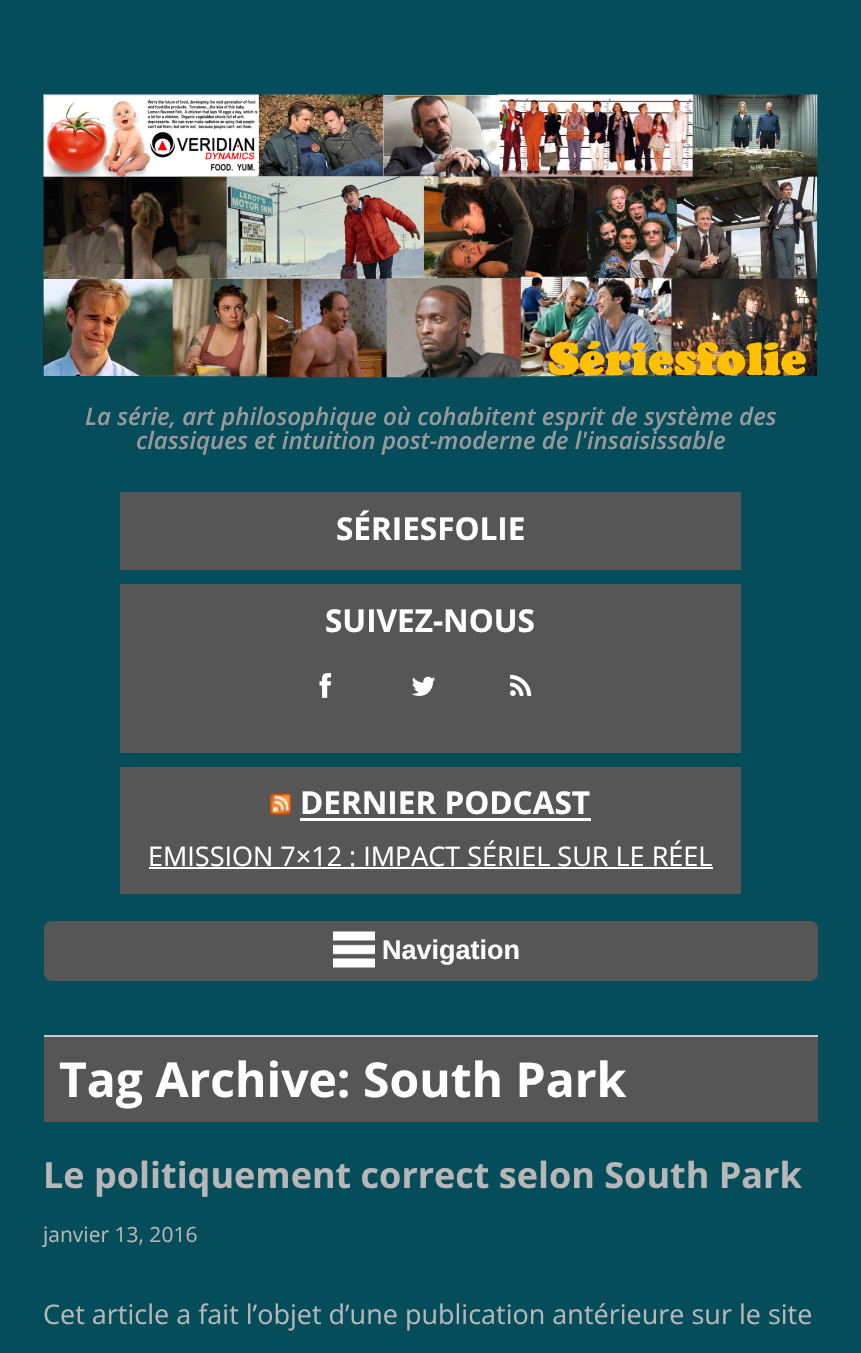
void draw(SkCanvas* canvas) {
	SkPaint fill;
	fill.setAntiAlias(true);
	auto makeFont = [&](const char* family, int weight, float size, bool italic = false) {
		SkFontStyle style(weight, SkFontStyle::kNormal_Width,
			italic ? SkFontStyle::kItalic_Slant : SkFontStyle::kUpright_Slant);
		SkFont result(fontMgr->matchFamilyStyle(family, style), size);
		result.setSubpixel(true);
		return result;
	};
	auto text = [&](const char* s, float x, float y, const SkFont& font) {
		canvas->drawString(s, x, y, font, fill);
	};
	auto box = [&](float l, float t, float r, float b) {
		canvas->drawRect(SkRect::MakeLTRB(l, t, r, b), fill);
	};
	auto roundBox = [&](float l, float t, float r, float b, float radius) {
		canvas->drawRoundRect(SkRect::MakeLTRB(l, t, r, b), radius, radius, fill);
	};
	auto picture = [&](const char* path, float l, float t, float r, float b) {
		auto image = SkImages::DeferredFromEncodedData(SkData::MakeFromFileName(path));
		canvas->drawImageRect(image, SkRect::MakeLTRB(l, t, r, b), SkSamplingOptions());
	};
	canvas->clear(0xFF064D5B);
	picture("image0.png", 43, 94, 818, 378);
	fill.setColor(0xFF565656);
	box(120, 492, 741, 570);
	box(120, 584, 741, 753);
	picture("image1.png", 319, 673, 332, 698);
	picture("image2.png", 411, 676, 436, 696);
	picture("image3.png", 510, 674, 532, 696);
	box(120, 767, 741, 894);
	picture("image4.png", 270, 793, 291, 815);
	fill.setColor(0xFFFFFFFF);
	box(300, 818, 591, 821);
	box(149, 867, 713, 869);
	fill.setColor(0xFF565656);
	roundBox(44, 921, 818, 981, 8);
	picture("image5.png", 333, 931, 375, 968);
	fill.setColor(0xFFCCCCCC);
	box(44, 1035, 818, 1037);
	fill.setColor(0xFF565656);
	box(44, 1037, 818, 1122);
	auto font1 = makeFont("Open Sans", 600, 24, true);
	fill.setColor(0xFF999999);
	text("La série, art philosophique où cohabitent esprit de système des", 85, 425, font1);
	text("classiques et intuition post-moderne de l'insaisissable", 136, 449, font1);
	auto font2 = makeFont("Open Sans", 700, 31.5f);
	fill.setColor(0xFFFFFFFF);
	text("SÉRIESFOLIE", 336, 540, font2);
	text("SUIVEZ-NOUS", 325, 632, font2);
	text("DERNIER PODCAST", 300, 814, font2);
	auto font3 = makeFont("Open Sans", 400, 27);
	text("EMISSION 7×12 : IMPACT SÉRIEL SUR LE RÉEL", 148, 866, font3);
	auto font4 = makeFont("Liberation Sans", 700, 27);
	text("Navigation", 382, 959, font4);
	auto font5 = makeFont("Open Sans", 700, 48);
	text("Tag Archive: South Park", 59, 1097, font5);
	auto font6 = makeFont("Open Sans", 700, 36);
	fill.setColor(0xFFB7B7B7);
	text("Le politiquement correct selon South Park", 43, 1188, font6);
	auto font7 = makeFont("Open Sans", 400, 21);
	text("janvier 13, 2016", 43, 1242, font7);
	text("Cet article a fait l’objet d’une publication antérieure sur le site", 43, 1324, font3);
}
